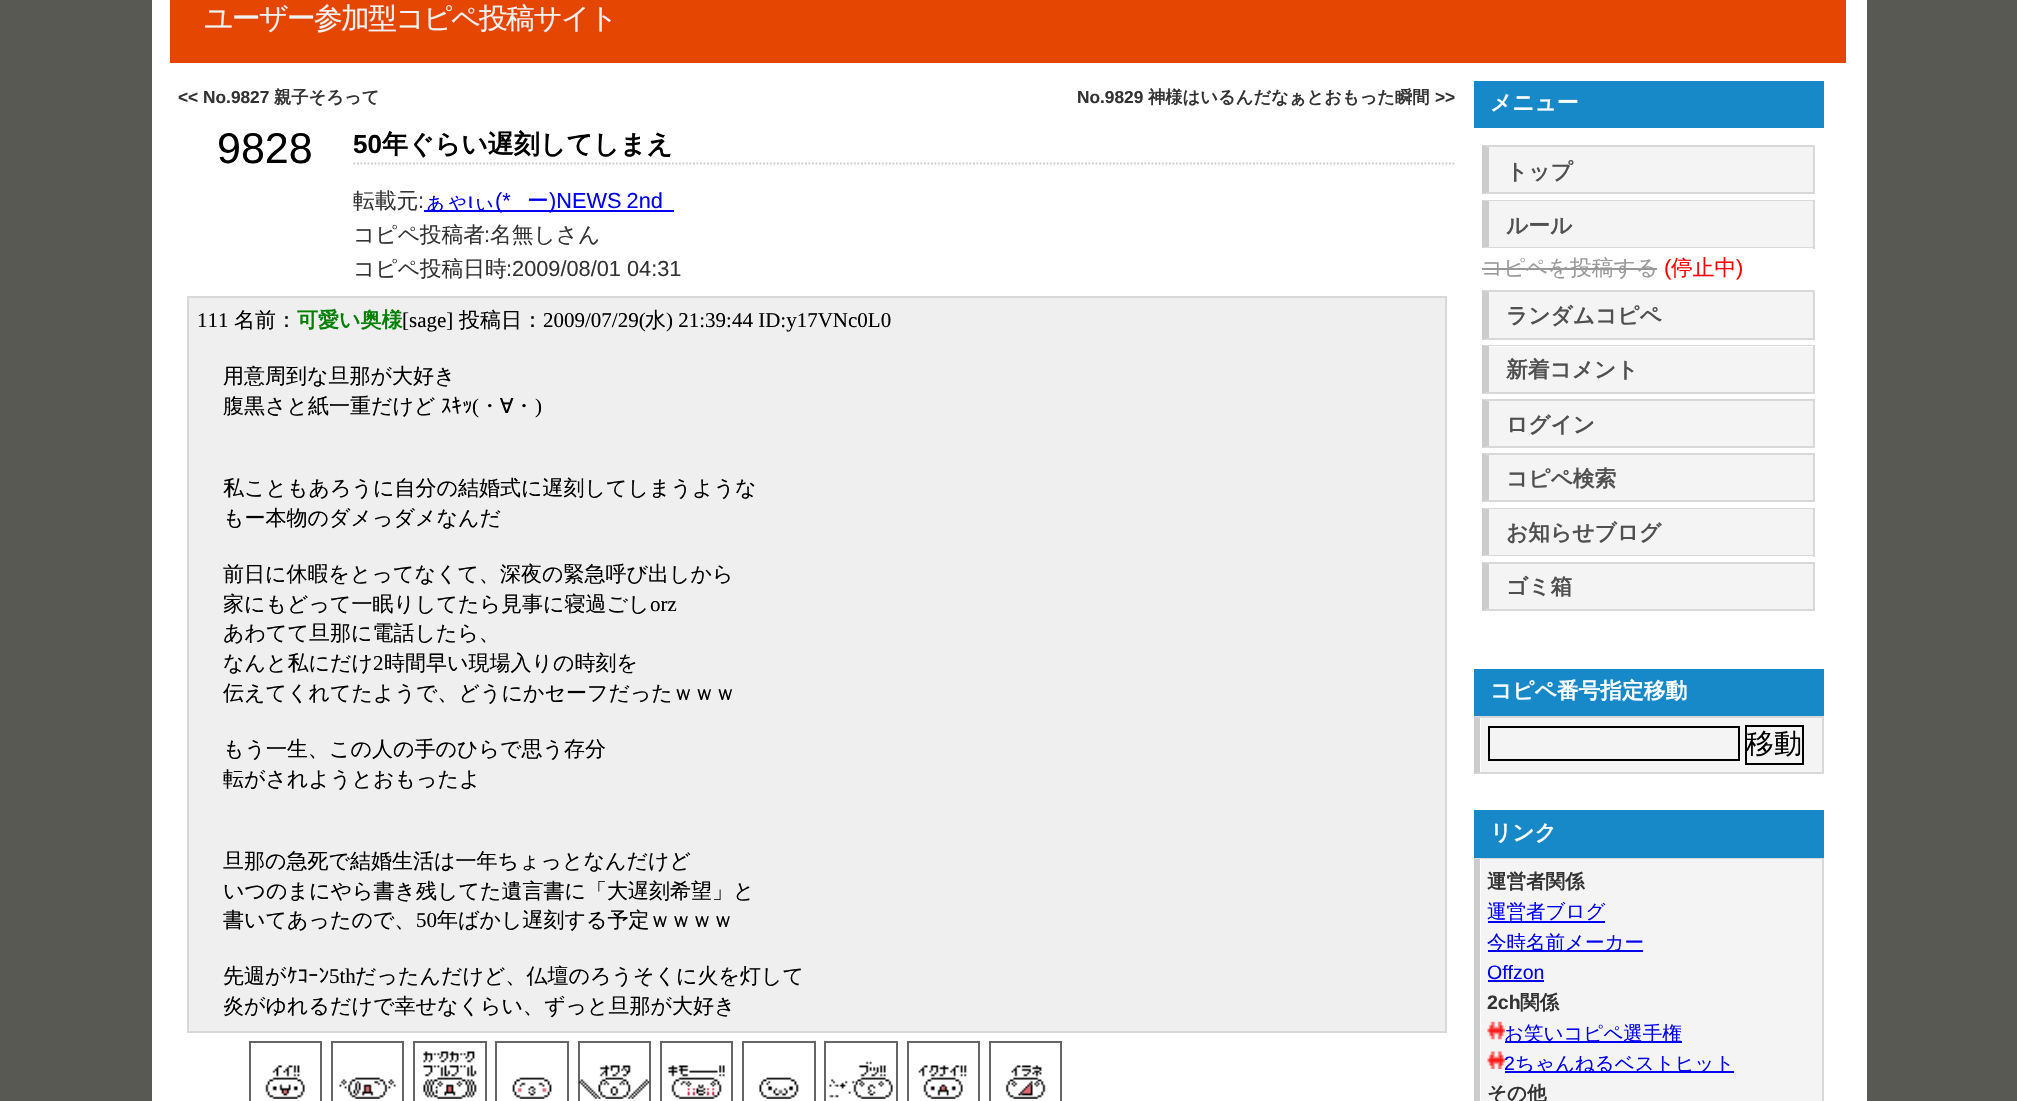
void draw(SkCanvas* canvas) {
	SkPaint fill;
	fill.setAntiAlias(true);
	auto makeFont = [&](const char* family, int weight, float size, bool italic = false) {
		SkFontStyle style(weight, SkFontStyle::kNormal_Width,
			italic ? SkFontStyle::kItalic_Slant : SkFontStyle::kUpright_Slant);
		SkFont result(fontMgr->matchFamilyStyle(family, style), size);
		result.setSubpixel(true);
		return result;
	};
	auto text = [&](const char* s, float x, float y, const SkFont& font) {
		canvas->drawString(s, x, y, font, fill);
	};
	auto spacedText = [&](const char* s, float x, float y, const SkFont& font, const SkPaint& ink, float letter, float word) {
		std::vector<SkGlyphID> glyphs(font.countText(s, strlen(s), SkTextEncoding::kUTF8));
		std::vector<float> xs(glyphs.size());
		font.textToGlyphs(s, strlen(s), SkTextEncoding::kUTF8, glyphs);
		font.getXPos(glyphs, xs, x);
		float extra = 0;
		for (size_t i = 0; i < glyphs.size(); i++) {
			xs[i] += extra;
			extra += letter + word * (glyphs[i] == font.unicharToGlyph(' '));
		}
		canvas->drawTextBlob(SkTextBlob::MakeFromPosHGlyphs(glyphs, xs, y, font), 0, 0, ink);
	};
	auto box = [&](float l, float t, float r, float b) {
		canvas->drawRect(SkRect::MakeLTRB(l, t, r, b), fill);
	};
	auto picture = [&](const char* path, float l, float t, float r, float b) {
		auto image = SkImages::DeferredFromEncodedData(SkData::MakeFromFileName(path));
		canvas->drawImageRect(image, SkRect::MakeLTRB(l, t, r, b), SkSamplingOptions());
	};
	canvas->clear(0xFF585953);
	fill.setColor(0xFFFFFFFF);
	box(152, 0, 1867, 1101);
	fill.setColor(0xFFE54602);
	box(170, 0, 1846, 63);
	fill.setStyle(SkPaint::kStroke_Style);
	fill.setStrokeWidth(1.8f);
	fill.setColor(0xFFCCCCCC);
	fill.setPathEffect(SkDashPathEffect::Make({{1.75f, 1.75f}}, 0));
	canvas->drawPath(SkPathBuilder().moveTo(353.5f, 163.5f).lineTo(1456, 163.5f).detach(), fill);
	fill.setPathEffect(nullptr);
	fill.setStyle(SkPaint::kFill_Style);
	fill.setColor(0xFF0000EE);
	box(424, 210, 674, 212);
	fill.setColor(0xFFEFEFEF);
	canvas->drawRect(SkRect::MakeLTRB(188, 297, 1446, 1032), fill);
	fill.setStyle(SkPaint::kStroke_Style);
	fill.setStrokeWidth(2);
	fill.setColor(0xFFD8D8D8);
	canvas->drawRect(SkRect::MakeLTRB(188, 297, 1446, 1032), fill);
	fill.setColor(0xFF666666);
	canvas->drawRect(SkRect::MakeLTRB(250, 1042, 321, 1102), fill);
	picture("image0.png", 265, 1065, 305, 1099);
	canvas->drawRect(SkRect::MakeLTRB(332, 1042, 403, 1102), fill);
	picture("image1.png", 339, 1077, 396, 1099);
	canvas->drawRect(SkRect::MakeLTRB(414, 1042, 486, 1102), fill);
	picture("image2.png", 423, 1051, 477, 1099);
	canvas->drawRect(SkRect::MakeLTRB(496, 1042, 568, 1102), fill);
	picture("image3.png", 512, 1077, 552, 1099);
	canvas->drawRect(SkRect::MakeLTRB(579, 1042, 650, 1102), fill);
	picture("image4.png", 579, 1065, 650, 1099);
	canvas->drawRect(SkRect::MakeLTRB(661, 1042, 732, 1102), fill);
	picture("image5.png", 668, 1065, 725, 1099);
	canvas->drawRect(SkRect::MakeLTRB(743, 1042, 815, 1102), fill);
	picture("image6.png", 759, 1077, 799, 1099);
	canvas->drawRect(SkRect::MakeLTRB(825, 1042, 897, 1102), fill);
	picture("image7.png", 829, 1061, 893, 1099);
	canvas->drawRect(SkRect::MakeLTRB(908, 1042, 979, 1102), fill);
	picture("image8.png", 918, 1065, 967, 1099);
	canvas->drawRect(SkRect::MakeLTRB(990, 1042, 1061, 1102), fill);
	picture("image9.png", 1005, 1065, 1046, 1099);
	fill.setStyle(SkPaint::kFill_Style);
	fill.setColor(0xFF1788C8);
	box(1474, 81, 1824, 128);
	fill.setColor(0xFFF4F4F4);
	box(1489, 147, 1813, 192);
	fill.setColor(0xFFD8D8D8);
	canvas->drawPath(SkPathBuilder().moveTo(1482, 145).lineTo(1815, 145).lineTo(1813, 147).lineTo(1489, 147).close().detach(), fill);
	box(1813, 145, 1815, 194);
	canvas->drawPath(SkPathBuilder().moveTo(1815, 194).lineTo(1482, 194).lineTo(1489, 192).lineTo(1813, 192).close().detach(), fill);
	fill.setColor(0xFFCCCCCC);
	canvas->drawPath(SkPathBuilder().moveTo(1482, 194).lineTo(1482, 145).lineTo(1489, 147).lineTo(1489, 192).close().detach(), fill);
	fill.setColor(0xFFF4F4F4);
	box(1489, 201, 1813, 247);
	fill.setColor(0xFFD8D8D8);
	canvas->drawPath(SkPathBuilder().moveTo(1482, 200).lineTo(1815, 200).lineTo(1813, 201).lineTo(1489, 201).close().detach(), fill);
	box(1813, 200, 1815, 249);
	canvas->drawPath(SkPathBuilder().moveTo(1815, 248).lineTo(1482, 248).lineTo(1489, 247).lineTo(1813, 247).close().detach(), fill);
	fill.setColor(0xFFCCCCCC);
	canvas->drawPath(SkPathBuilder().moveTo(1482, 248).lineTo(1482, 200).lineTo(1489, 201).lineTo(1489, 247).close().detach(), fill);
	fill.setColor(0xFF999999);
	box(1482, 268, 1657, 270);
	fill.setColor(0xFFF4F4F4);
	box(1489, 292, 1813, 338);
	fill.setColor(0xFFD8D8D8);
	canvas->drawPath(SkPathBuilder().moveTo(1482, 290).lineTo(1815, 290).lineTo(1813, 292).lineTo(1489, 292).close().detach(), fill);
	box(1813, 291, 1815, 340);
	canvas->drawPath(SkPathBuilder().moveTo(1815, 340).lineTo(1482, 340).lineTo(1489, 338).lineTo(1813, 338).close().detach(), fill);
	fill.setColor(0xFFCCCCCC);
	canvas->drawPath(SkPathBuilder().moveTo(1482, 340).lineTo(1482, 290).lineTo(1489, 292).lineTo(1489, 338).close().detach(), fill);
	fill.setColor(0xFFF4F4F4);
	box(1489, 347, 1813, 392);
	fill.setColor(0xFFD8D8D8);
	canvas->drawPath(SkPathBuilder().moveTo(1482, 345).lineTo(1815, 345).lineTo(1813, 346).lineTo(1489, 346).close().detach(), fill);
	box(1813, 345, 1815, 394);
	canvas->drawPath(SkPathBuilder().moveTo(1815, 394).lineTo(1482, 394).lineTo(1489, 392).lineTo(1813, 392).close().detach(), fill);
	fill.setColor(0xFFCCCCCC);
	canvas->drawPath(SkPathBuilder().moveTo(1482, 394).lineTo(1482, 345).lineTo(1489, 346).lineTo(1489, 392).close().detach(), fill);
	fill.setColor(0xFFF4F4F4);
	box(1489, 401, 1813, 446);
	fill.setColor(0xFFD8D8D8);
	canvas->drawPath(SkPathBuilder().moveTo(1482, 399).lineTo(1815, 399).lineTo(1813, 401).lineTo(1489, 401).close().detach(), fill);
	box(1813, 399, 1815, 448);
	canvas->drawPath(SkPathBuilder().moveTo(1815, 448).lineTo(1482, 448).lineTo(1489, 446).lineTo(1813, 446).close().detach(), fill);
	fill.setColor(0xFFCCCCCC);
	canvas->drawPath(SkPathBuilder().moveTo(1482, 448).lineTo(1482, 399).lineTo(1489, 401).lineTo(1489, 446).close().detach(), fill);
	fill.setColor(0xFFF4F4F4);
	box(1489, 455, 1813, 500);
	fill.setColor(0xFFD8D8D8);
	canvas->drawPath(SkPathBuilder().moveTo(1482, 453).lineTo(1815, 453).lineTo(1813, 455).lineTo(1489, 455).close().detach(), fill);
	box(1813, 453, 1815, 502);
	canvas->drawPath(SkPathBuilder().moveTo(1815, 502).lineTo(1482, 502).lineTo(1489, 500).lineTo(1813, 500).close().detach(), fill);
	fill.setColor(0xFFCCCCCC);
	canvas->drawPath(SkPathBuilder().moveTo(1482, 502).lineTo(1482, 453).lineTo(1489, 455).lineTo(1489, 500).close().detach(), fill);
	fill.setColor(0xFFF4F4F4);
	box(1489, 509, 1813, 555);
	fill.setColor(0xFFD8D8D8);
	canvas->drawPath(SkPathBuilder().moveTo(1482, 508).lineTo(1815, 508).lineTo(1813, 509).lineTo(1489, 509).close().detach(), fill);
	box(1813, 508, 1815, 557);
	canvas->drawPath(SkPathBuilder().moveTo(1815, 556).lineTo(1482, 556).lineTo(1489, 555).lineTo(1813, 555).close().detach(), fill);
	fill.setColor(0xFFCCCCCC);
	canvas->drawPath(SkPathBuilder().moveTo(1482, 556).lineTo(1482, 508).lineTo(1489, 509).lineTo(1489, 555).close().detach(), fill);
	fill.setColor(0xFFF4F4F4);
	box(1489, 564, 1813, 609);
	fill.setColor(0xFFD8D8D8);
	canvas->drawPath(SkPathBuilder().moveTo(1482, 562).lineTo(1815, 562).lineTo(1813, 564).lineTo(1489, 564).close().detach(), fill);
	box(1813, 562, 1815, 611);
	canvas->drawPath(SkPathBuilder().moveTo(1815, 611).lineTo(1482, 611).lineTo(1489, 609).lineTo(1813, 609).close().detach(), fill);
	fill.setColor(0xFFCCCCCC);
	canvas->drawPath(SkPathBuilder().moveTo(1482, 611).lineTo(1482, 562).lineTo(1489, 564).lineTo(1489, 609).close().detach(), fill);
	fill.setColor(0xFF1788C8);
	box(1474, 669, 1824, 716);
	fill.setColor(0xFFF4F4F4);
	box(1481, 718, 1822, 772);
	fill.setColor(0xFFD8D8D8);
	canvas->drawPath(SkPathBuilder().moveTo(1474, 716).lineTo(1824, 716).lineTo(1822, 718).lineTo(1480, 718).close().detach(), fill);
	box(1822, 716, 1824, 774);
	canvas->drawPath(SkPathBuilder().moveTo(1824, 774).lineTo(1474, 774).lineTo(1480, 772).lineTo(1822, 772).close().detach(), fill);
	fill.setColor(0xFFCCCCCC);
	canvas->drawPath(SkPathBuilder().moveTo(1474, 774).lineTo(1474, 716).lineTo(1480, 718).lineTo(1480, 772).close().detach(), fill);
	fill.setStyle(SkPaint::kStroke_Style);
	fill.setColor(0xFF000000);
	canvas->drawRect(SkRect::MakeLTRB(1489, 727, 1739, 760), fill);
	canvas->drawRect(SkRect::MakeLTRB(1746, 726, 1803, 764), fill);
	fill.setStyle(SkPaint::kFill_Style);
	fill.setColor(0xFF1788C8);
	box(1474, 810, 1824, 858);
	fill.setColor(0xFFF4F4F4);
	box(1481, 859, 1822, 1101);
	fill.setColor(0xFFD8D8D8);
	canvas->drawPath(SkPathBuilder().moveTo(1474, 858).lineTo(1824, 858).lineTo(1822, 859).lineTo(1480, 859).close().detach(), fill);
	box(1822, 858, 1824, 1101);
	fill.setColor(0xFFCCCCCC);
	canvas->drawPath(SkPathBuilder().moveTo(1474, 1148).lineTo(1474, 858).lineTo(1480, 859).lineTo(1480, 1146).close().detach(), fill);
	fill.setColor(0xFF0000EE);
	box(1488, 921, 1605, 923);
	box(1488, 950, 1643, 952);
	box(1488, 980, 1544, 982);
	picture("image10.png", 1487, 1021, 1505, 1040);
	box(1505, 1041, 1682, 1043);
	picture("image11.png", 1487, 1051, 1505, 1069);
	box(1505, 1071, 1734, 1073);
	auto font1 = makeFont("WenQuanYi Zen Hei", 500, 28.9f);
	fill.setColor(0xFFF0F2F4);
	spacedText("ユーザー参加型コピペ投稿サイト", 204, 28, font1, fill, -1.75f, 0);
	auto font2 = makeFont("Liberation Sans", 700, 17.3f);
	fill.setColor(0xFF333333);
	text("<< No.9827", 178, 103, font2);
	auto font3 = makeFont("WenQuanYi Zen Hei", 700, 17.3f);
	text("親子そろって", 274, 103, font3);
	text("No.9829", 1077, 103, font2);
	text("神様はいるんだなぁとおもった瞬間", 1148, 103, font3);
	text(">>", 1435, 103, font2);
	auto font4 = makeFont("Liberation Sans", 400, 43);
	fill.setColor(0xFF000000);
	text("9828", 217, 163, font4);
	auto font5 = makeFont("Liberation Sans", 700, 26);
	text("50", 353, 153, font5);
	auto font6 = makeFont("WenQuanYi Zen Hei", 700, 26);
	text("年ぐらい遅刻してしまえ", 382, 153, font6);
	auto font7 = makeFont("WenQuanYi Zen Hei", 500, 21.75f);
	fill.setColor(0xFF333333);
	text("転載元", 353, 208, font7);
	auto font8 = makeFont("Liberation Sans", 400, 21.75f);
	text(":", 418, 208, font8);
	fill.setColor(0xFF0000EE);
	text("ぁゃ", 424, 208, font7);
	text("ι", 468, 208, font8);
	text("ぃ", 473, 208, font7);
	text("(*ﾟ", 495, 208, font8);
	text("ー", 527, 208, font7);
	spacedText("ﾟ)NEWS 2nd", 549, 208, font8, fill, 0, -1);
	fill.setColor(0xFF333333);
	text("コピペ投稿者", 353, 242, font7);
	text(":", 484, 242, font8);
	text("名無しさん", 490, 242, font7);
	text("コピペ投稿日時", 353, 276, font7);
	text(":2009/08/01 04:31", 506, 276, font8);
	auto font9 = makeFont("Liberation Serif", 400, 21);
	fill.setColor(0xFF000000);
	text("111", 197, 327, font9);
	auto font10 = makeFont("WenQuanYi Zen Hei", 500, 21);
	text("名前：", 234, 327, font10);
	auto font11 = makeFont("WenQuanYi Zen Hei", 700, 21);
	fill.setColor(0xFF008000);
	text("可愛い奥様", 297, 327, font11);
	fill.setColor(0xFF000000);
	text("[sage]", 402, 327, font9);
	text("投稿日：", 459, 327, font10);
	text("2009/07/29(", 543, 327, font9);
	text("水", 645, 327, font10);
	text(") 21:39:44 ID:y17VNc0L0", 666, 327, font9);
	text("用意周到な旦那が大好き", 223, 383, font10);
	text("腹黒さと紙一重だけど", 223, 413, font10);
	auto font12 = makeFont("IPAPGothic", 400, 21);
	text("ｽｷｯ", 441, 413, font12);
	text("(", 472, 413, font9);
	text("・∀・", 479, 413, font10);
	text(")", 535, 413, font9);
	text("私こともあろうに自分の結婚式に遅刻してしまうような", 223, 495, font10);
	text("もー本物のダメっダメなんだ", 223, 525, font10);
	text("前日に休暇をとってなくて、深夜の緊急呼び出しから", 223, 581, font10);
	text("家にもどって一眠りしてたら見事に寝過ごし", 223, 611, font10);
	text("orz", 650, 611, font9);
	text("あわてて旦那に電話したら、", 223, 640, font10);
	text("なんと私にだけ", 223, 670, font10);
	text("2", 373, 670, font9);
	text("時間早い現場入りの時刻を", 384, 670, font10);
	text("伝えてくれてたようで、どうにかセーフだったｗｗｗ", 223, 700, font10);
	text("もう一生、この人の手のひらで思う存分", 223, 756, font10);
	text("転がされようとおもったよ", 223, 786, font10);
	text("旦那の急死で結婚生活は一年ちょっとなんだけど", 223, 868, font10);
	text("いつのまにやら書き残してた遺言書に「大遅刻希望」と", 223, 898, font10);
	text("書いてあったので、", 223, 927, font10);
	text("50", 416, 927, font9);
	text("年ばかし遅刻する予定ｗｗｗｗ", 437, 927, font10);
	text("先週が", 223, 983, font10);
	text("ｹｺｰﾝ", 287, 983, font12);
	text("5th", 329, 983, font9);
	text("だったんだけど、仏壇のろうそくに火を灯して", 355, 983, font10);
	text("炎がゆれるだけで幸せなくらい、ずっと旦那が大好き", 223, 1013, font10);
	auto font13 = makeFont("WenQuanYi Zen Hei", 700, 21.75f);
	fill.setColor(0xFFFFFFFF);
	text("メニュー", 1490, 110, font13);
	fill.setColor(0xFF505050);
	text("トップ", 1506, 179, font13);
	text("ルール", 1506, 233, font13);
	fill.setColor(0xFF999999);
	text("コピペを投稿する", 1481, 275, font7);
	fill.setColor(0xFFFF0000);
	text("(", 1664, 275, font8);
	text("停止中", 1671, 275, font7);
	text(")", 1736, 275, font8);
	fill.setColor(0xFF505050);
	text("ランダムコピペ", 1506, 323, font13);
	text("新着コメント", 1506, 377, font13);
	text("ログイン", 1506, 432, font13);
	text("コピペ検索", 1506, 486, font13);
	text("お知らせブログ", 1506, 540, font13);
	text("ゴミ箱", 1506, 594, font13);
	fill.setColor(0xFFFFFFFF);
	text("コピペ番号指定移動", 1490, 698, font13);
	canvas->save();
	canvas->clipRect(SkRect::MakeLTRB(1747, 726, 1803, 763));
	auto font14 = makeFont("WenQuanYi Zen Hei", 500, 28);
	fill.setColor(0xFF000000);
	text("移動", 1746, 753, font14);
	canvas->restore();
	fill.setColor(0xFFFFFFFF);
	text("リンク", 1490, 840, font13);
	auto font15 = makeFont("WenQuanYi Zen Hei", 700, 19.5f);
	fill.setColor(0xFF333333);
	text("運営者関係", 1487, 888, font15);
	auto font16 = makeFont("WenQuanYi Zen Hei", 500, 19.5f);
	fill.setColor(0xFF0000EE);
	text("運営者ブログ", 1487, 918, font16);
	text("今時名前メーカー", 1487, 949, font16);
	auto font17 = makeFont("Liberation Sans", 400, 19.5f);
	text("Offzon", 1487, 979, font17);
	auto font18 = makeFont("Liberation Sans", 700, 19.5f);
	fill.setColor(0xFF333333);
	text("2ch", 1487, 1009, font18);
	text("関係", 1520, 1009, font15);
	fill.setColor(0xFF0000EE);
	text("お笑いコピペ選手権", 1504, 1040, font16);
	text("2", 1504, 1070, font17);
	text("ちゃんねるベストヒット", 1515, 1070, font16);
	fill.setColor(0xFF333333);
	text("その他", 1487, 1100, font15);
}
